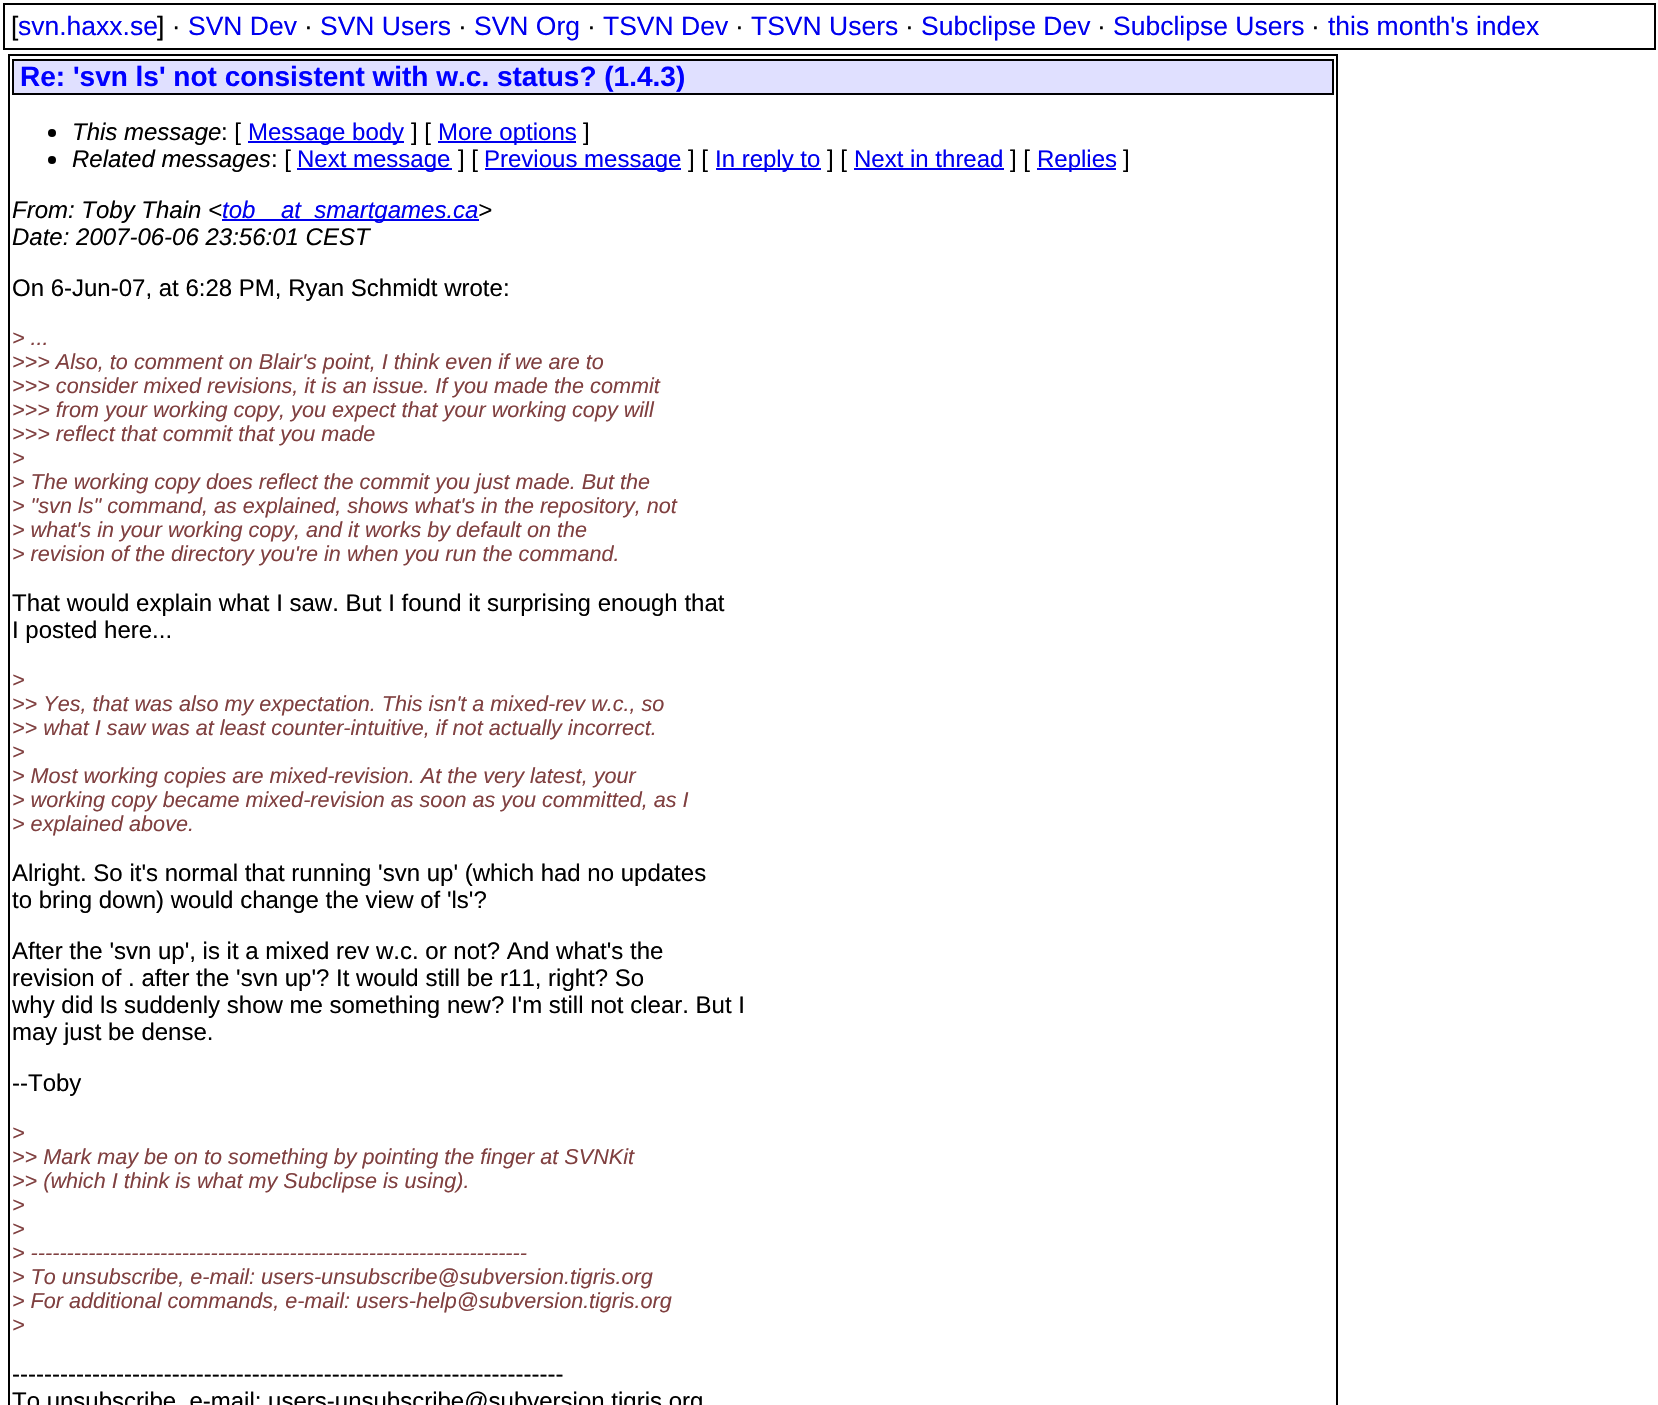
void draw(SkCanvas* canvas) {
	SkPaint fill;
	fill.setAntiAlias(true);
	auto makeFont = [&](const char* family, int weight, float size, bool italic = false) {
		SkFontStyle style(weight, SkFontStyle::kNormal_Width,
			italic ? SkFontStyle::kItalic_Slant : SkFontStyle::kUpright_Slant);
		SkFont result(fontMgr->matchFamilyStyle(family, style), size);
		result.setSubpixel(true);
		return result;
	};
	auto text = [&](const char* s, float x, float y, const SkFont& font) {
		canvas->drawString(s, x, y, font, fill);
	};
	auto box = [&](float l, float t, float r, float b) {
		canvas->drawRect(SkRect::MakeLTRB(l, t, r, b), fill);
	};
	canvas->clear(0xFFFFFFFF);
	fill.setStyle(SkPaint::kStroke_Style);
	fill.setStrokeWidth(2);
	fill.setColor(0xFF000000);
	canvas->drawRect(SkRect::MakeLTRB(4, 4, 1655, 49), fill);
	canvas->drawRect(SkRect::MakeLTRB(9, 55, 1337, 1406), fill);
	fill.setStyle(SkPaint::kFill_Style);
	fill.setColor(0xFFE0E0FF);
	canvas->drawRect(SkRect::MakeLTRB(13, 60, 1333, 94), fill);
	fill.setStyle(SkPaint::kStroke_Style);
	fill.setColor(0xFF000000);
	canvas->drawRect(SkRect::MakeLTRB(13, 60, 1333, 94), fill);
	fill.setStyle(SkPaint::kFill_Style);
	canvas->drawCircle(52, 133, 4, fill);
	fill.setColor(0xFF0000EE);
	box(248, 141, 404, 143);
	box(438, 141, 576, 143);
	fill.setColor(0xFF000000);
	canvas->drawCircle(52, 160, 4, fill);
	fill.setColor(0xFF0000EE);
	box(297, 168, 452, 170);
	box(485, 168, 681, 170);
	box(716, 168, 821, 170);
	box(854, 168, 1004, 170);
	box(1037, 168, 1116, 170);
	box(222, 219, 479, 221);
	auto font1 = makeFont("Liberation Sans", 400, 26.5f);
	fill.setColor(0xFF000000);
	text("[", 11, 35, font1);
	fill.setColor(0xFF0000EE);
	text("svn.haxx.se", 18, 35, font1);
	fill.setColor(0xFF000000);
	text("] ·", 157, 35, font1);
	fill.setColor(0xFF0000EE);
	text("SVN Dev", 188, 35, font1);
	fill.setColor(0xFF000000);
	text("·", 304, 35, font1);
	fill.setColor(0xFF0000EE);
	text("SVN Users", 320, 35, font1);
	fill.setColor(0xFF000000);
	text("·", 458, 35, font1);
	fill.setColor(0xFF0000EE);
	text("SVN Org", 474, 35, font1);
	fill.setColor(0xFF000000);
	text("·", 587, 35, font1);
	fill.setColor(0xFF0000EE);
	text("TSVN Dev", 603, 35, font1);
	fill.setColor(0xFF000000);
	text("·", 735, 35, font1);
	fill.setColor(0xFF0000EE);
	text("TSVN Users", 751, 35, font1);
	fill.setColor(0xFF000000);
	text("·", 905, 35, font1);
	fill.setColor(0xFF0000EE);
	text("Subclipse Dev", 921, 35, font1);
	fill.setColor(0xFF000000);
	text("·", 1097, 35, font1);
	fill.setColor(0xFF0000EE);
	text("Subclipse Users", 1113, 35, font1);
	fill.setColor(0xFF000000);
	text("·", 1311, 35, font1);
	fill.setColor(0xFF0000EE);
	text("this month's index", 1328, 35, font1);
	auto font2 = makeFont("Liberation Sans", 700, 28);
	fill.setColor(0xFF0000FF);
	text("Re: 'svn ls' not consistent with w.c. status? (1.4.3)", 20, 86, font2);
	auto font3 = makeFont("Liberation Sans", 400, 24, true);
	fill.setColor(0xFF000000);
	text("This message", 72, 140, font3);
	auto font4 = makeFont("Liberation Sans", 400, 24);
	text(": [", 221, 140, font4);
	fill.setColor(0xFF0000EE);
	text("Message body", 248, 140, font4);
	fill.setColor(0xFF000000);
	text("] [", 411, 140, font4);
	fill.setColor(0xFF0000EE);
	text("More options", 438, 140, font4);
	fill.setColor(0xFF000000);
	text("]", 583, 140, font4);
	text("Related messages", 72, 167, font3);
	text(": [", 271, 167, font4);
	fill.setColor(0xFF0000EE);
	text("Next message", 297, 167, font4);
	fill.setColor(0xFF000000);
	text("] [", 458, 167, font4);
	fill.setColor(0xFF0000EE);
	text("Previous message", 484, 167, font4);
	fill.setColor(0xFF000000);
	text("] [", 688, 167, font4);
	fill.setColor(0xFF0000EE);
	text("In reply to", 715, 167, font4);
	fill.setColor(0xFF000000);
	text("] [", 827, 167, font4);
	fill.setColor(0xFF0000EE);
	text("Next in thread", 854, 167, font4);
	fill.setColor(0xFF000000);
	text("] [", 1010, 167, font4);
	fill.setColor(0xFF0000EE);
	text("Replies", 1037, 167, font4);
	fill.setColor(0xFF000000);
	text("]", 1123, 167, font4);
	text("From: Toby Thain <", 12, 218, font3);
	fill.setColor(0xFF0000EE);
	text("tob", 222, 218, font3);
	text("at_smartgames.ca", 281, 218, font3);
	fill.setColor(0xFF000000);
	text(">", 478, 218, font3);
	text("Date: 2007-06-06 23:56:01 CEST", 12, 245, font3);
	text("On 6-Jun-07, at 6:28 PM, Ryan Schmidt wrote:", 12, 296, font4);
	auto font5 = makeFont("Liberation Sans", 400, 21.6f, true);
	fill.setColor(0xFF804040);
	text("> ...", 12, 345, font5);
	text(">>> Also, to comment on Blair's point, I think even if we are to", 12, 369, font5);
	text(">>> consider mixed revisions, it is an issue. If you made the commit", 12, 393, font5);
	text(">>> from your working copy, you expect that your working copy will", 12, 417, font5);
	text(">>> reflect that commit that you made", 12, 441, font5);
	text(">", 12, 465, font5);
	text("> The working copy does reflect the commit you just made. But the", 12, 489, font5);
	text("> \"svn ls\" command, as explained, shows what's in the repository, not", 12, 513, font5);
	text("> what's in your working copy, and it works by default on the", 12, 537, font5);
	text("> revision of the directory you're in when you run the command.", 12, 561, font5);
	fill.setColor(0xFF000000);
	text("That would explain what I saw. But I found it surprising enough that", 12, 611, font4);
	text("I posted here...", 12, 638, font4);
	fill.setColor(0xFF804040);
	text(">", 12, 687, font5);
	text(">> Yes, that was also my expectation. This isn't a mixed-rev w.c., so", 12, 711, font5);
	text(">> what I saw was at least counter-intuitive, if not actually incorrect.", 12, 735, font5);
	text(">", 12, 759, font5);
	text("> Most working copies are mixed-revision. At the very latest, your", 12, 783, font5);
	text("> working copy became mixed-revision as soon as you committed, as I", 12, 807, font5);
	text("> explained above.", 12, 831, font5);
	fill.setColor(0xFF000000);
	text("Alright. So it's normal that running 'svn up' (which had no updates", 12, 881, font4);
	text("to bring down) would change the view of 'ls'?", 12, 908, font4);
	text("After the 'svn up', is it a mixed rev w.c. or not? And what's the", 12, 959, font4);
	text("revision of . after the 'svn up'? It would still be r11, right? So", 12, 986, font4);
	text("why did ls suddenly show me something new? I'm still not clear. But I", 12, 1013, font4);
	text("may just be dense.", 12, 1040, font4);
	text("--Toby", 12, 1091, font4);
	fill.setColor(0xFF804040);
	text(">", 12, 1140, font5);
	text(">> Mark may be on to something by pointing the finger at SVNKit", 12, 1164, font5);
	text(">> (which I think is what my Subclipse is using).", 12, 1188, font5);
	text(">", 12, 1212, font5);
	text(">", 12, 1236, font5);
	text("> ---------------------------------------------------------------------", 12, 1260, font5);
	text("> To unsubscribe, e-mail: users-unsubscribe@subversion.", 12, 1284, font5);
	text("tigris.org", 570, 1284, font5);
	text("> For additional commands, e-mail: users-help@subversion.", 12, 1308, font5);
	text("tigris.org", 589, 1308, font5);
	text(">", 12, 1332, font5);
	fill.setColor(0xFF000000);
	text("---------------------------------------------------------------------", 12, 1382, font4);
	text("To unsubscribe, e-mail: users-unsubscribe@subversion tigris.org", 12, 1409, font4);
}
